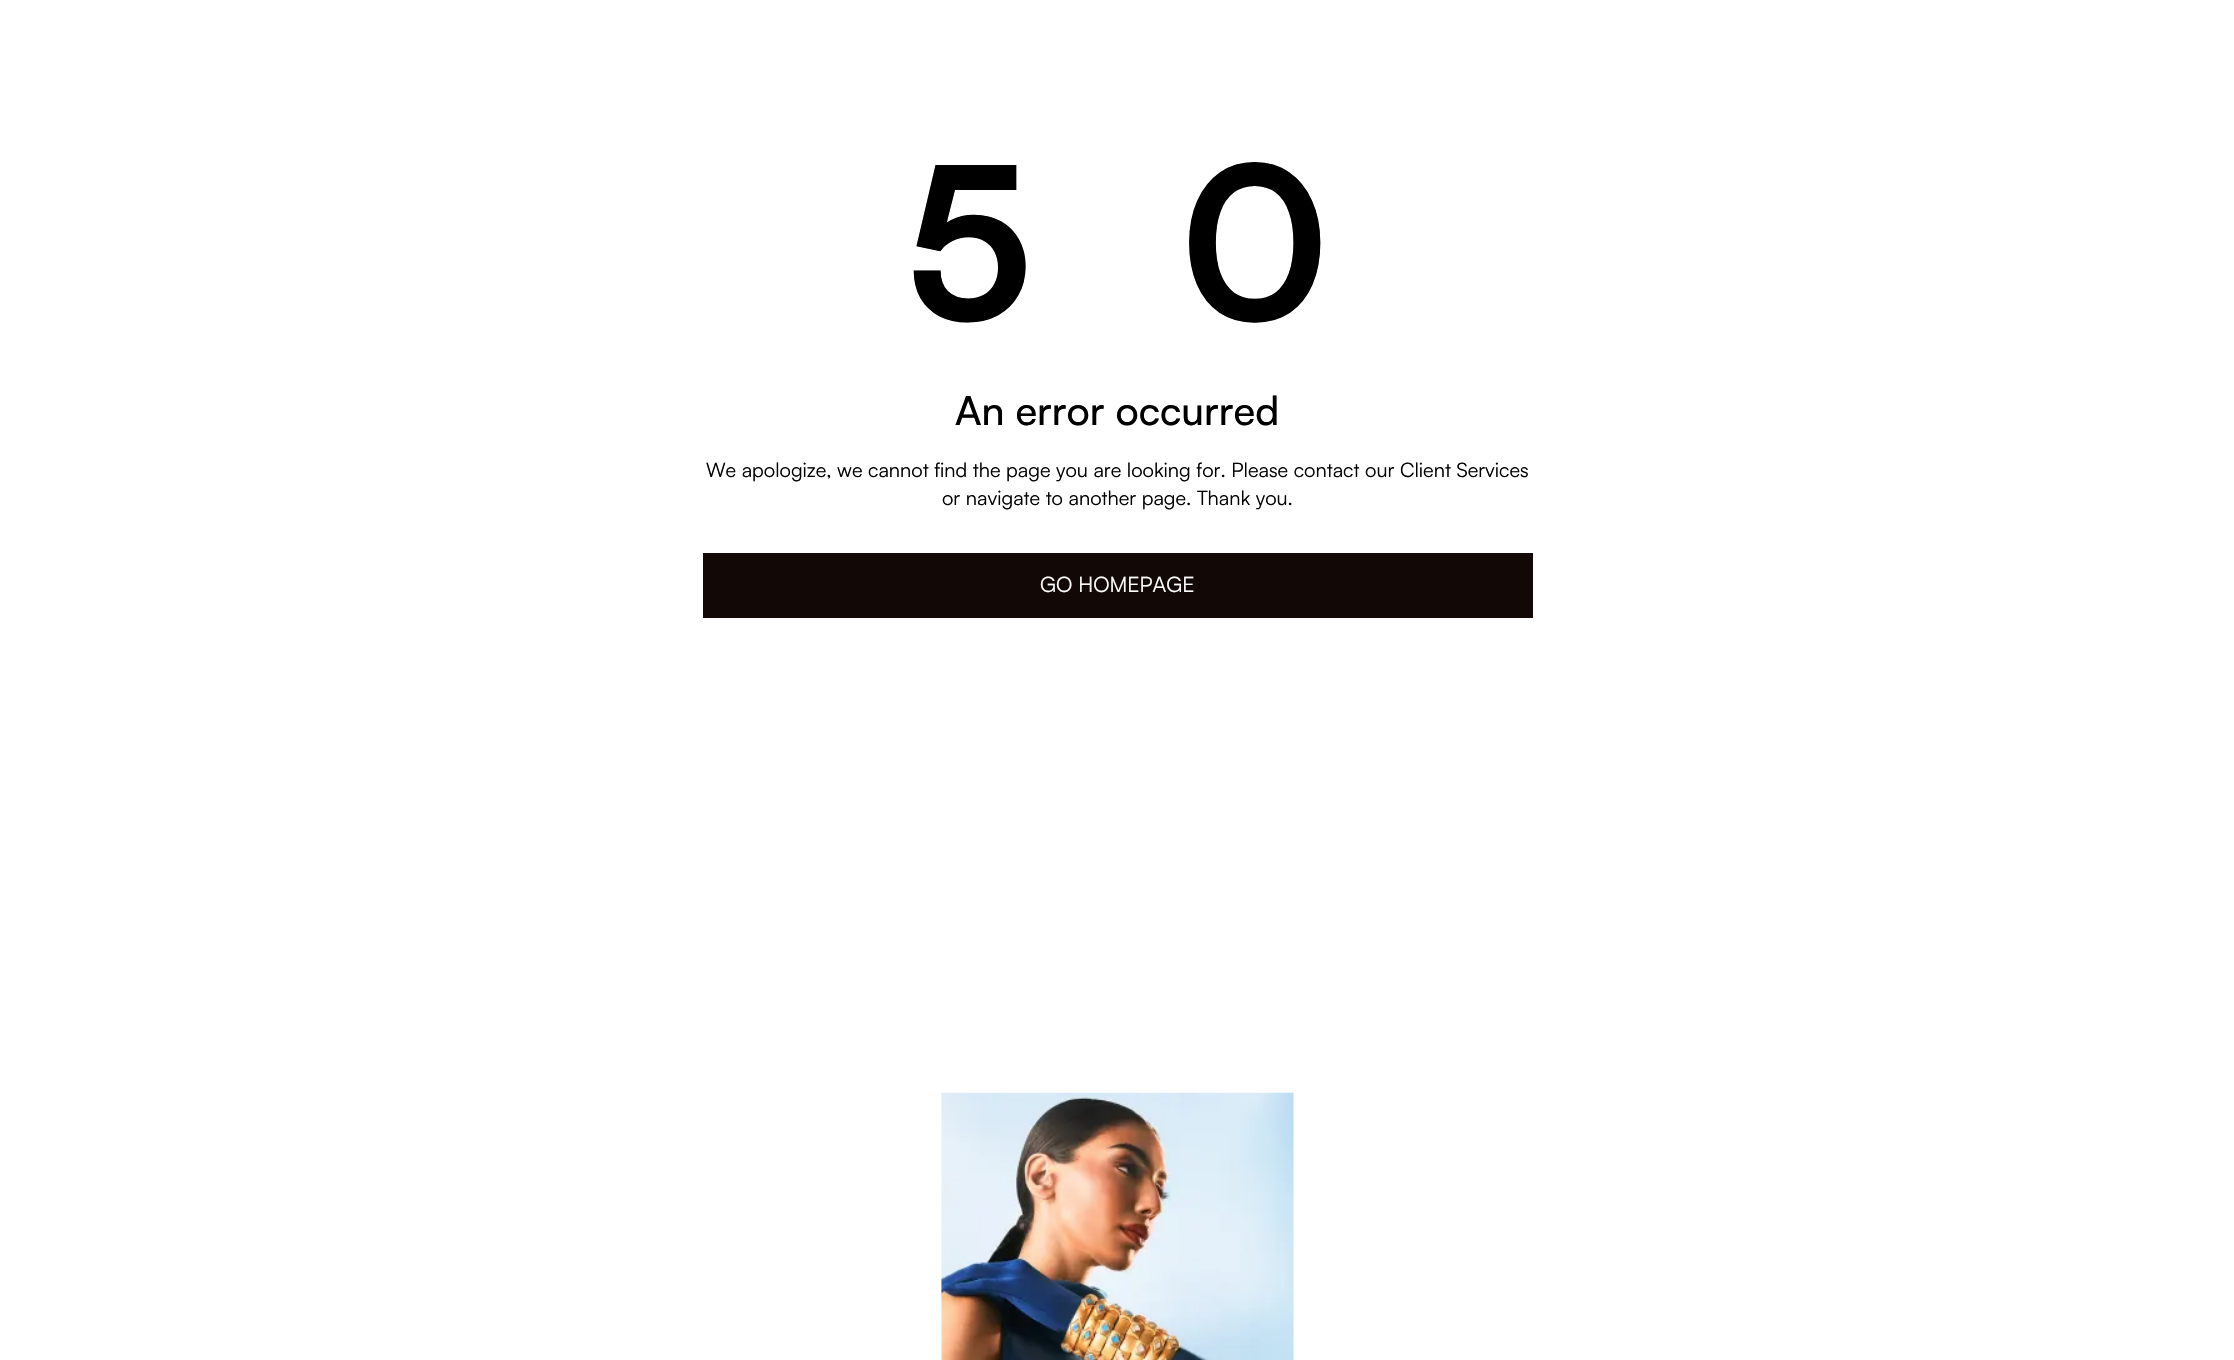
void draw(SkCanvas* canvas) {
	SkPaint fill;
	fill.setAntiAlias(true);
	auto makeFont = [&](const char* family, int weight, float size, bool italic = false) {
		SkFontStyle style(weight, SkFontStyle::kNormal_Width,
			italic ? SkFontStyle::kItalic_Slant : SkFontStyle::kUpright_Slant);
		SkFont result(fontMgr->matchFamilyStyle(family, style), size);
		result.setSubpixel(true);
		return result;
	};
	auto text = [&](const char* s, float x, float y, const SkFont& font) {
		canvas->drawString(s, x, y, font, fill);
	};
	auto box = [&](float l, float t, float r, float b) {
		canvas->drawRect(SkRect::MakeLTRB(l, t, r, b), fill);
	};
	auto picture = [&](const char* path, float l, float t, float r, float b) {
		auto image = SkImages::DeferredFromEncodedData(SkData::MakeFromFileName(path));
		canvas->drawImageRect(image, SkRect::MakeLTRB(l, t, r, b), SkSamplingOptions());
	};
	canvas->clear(0xFFFFFFFF);
	fill.setColor(0xFF120806);
	box(703, 553, 1533, 618);
	picture("image0.png", 941, 1092, 1294, 1360);
	auto font1 = makeFont("Satoshi", 700, 212);
	fill.setColor(0xFF000000);
	text("5", 905, 320, font1);
	text("0", 1180, 320, font1);
	auto font2 = makeFont("Satoshi", 500, 40);
	text("An error occurred", 955, 425, font2);
	auto font3 = makeFont("Satoshi", 400, 20);
	text("We apologize, we cannot find the page you are looking for. Please contact our Client Services", 706, 477, font3);
	text("or navigate to another page. Thank you.", 942, 505, font3);
	auto font4 = makeFont("Satoshi", 400, 21.25f);
	fill.setColor(0xFFFFFFFF);
	text("GO HOMEPAGE", 1040, 592, font4);
}
